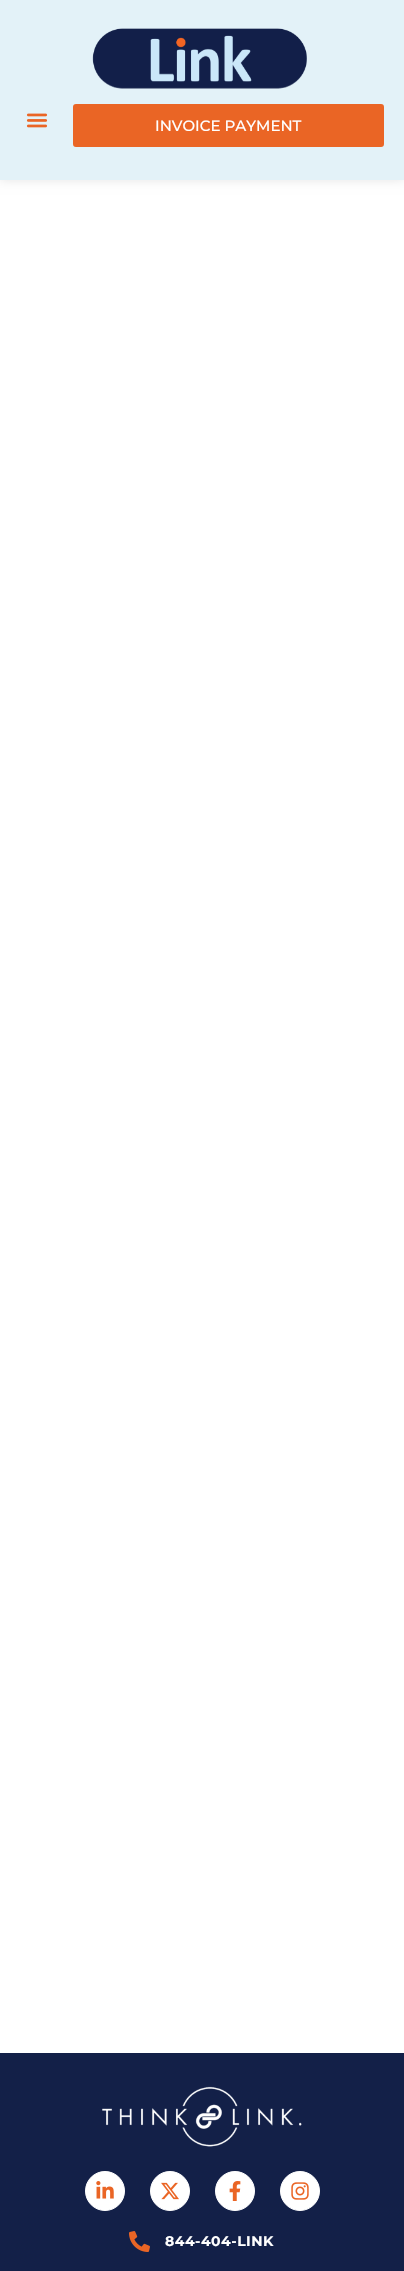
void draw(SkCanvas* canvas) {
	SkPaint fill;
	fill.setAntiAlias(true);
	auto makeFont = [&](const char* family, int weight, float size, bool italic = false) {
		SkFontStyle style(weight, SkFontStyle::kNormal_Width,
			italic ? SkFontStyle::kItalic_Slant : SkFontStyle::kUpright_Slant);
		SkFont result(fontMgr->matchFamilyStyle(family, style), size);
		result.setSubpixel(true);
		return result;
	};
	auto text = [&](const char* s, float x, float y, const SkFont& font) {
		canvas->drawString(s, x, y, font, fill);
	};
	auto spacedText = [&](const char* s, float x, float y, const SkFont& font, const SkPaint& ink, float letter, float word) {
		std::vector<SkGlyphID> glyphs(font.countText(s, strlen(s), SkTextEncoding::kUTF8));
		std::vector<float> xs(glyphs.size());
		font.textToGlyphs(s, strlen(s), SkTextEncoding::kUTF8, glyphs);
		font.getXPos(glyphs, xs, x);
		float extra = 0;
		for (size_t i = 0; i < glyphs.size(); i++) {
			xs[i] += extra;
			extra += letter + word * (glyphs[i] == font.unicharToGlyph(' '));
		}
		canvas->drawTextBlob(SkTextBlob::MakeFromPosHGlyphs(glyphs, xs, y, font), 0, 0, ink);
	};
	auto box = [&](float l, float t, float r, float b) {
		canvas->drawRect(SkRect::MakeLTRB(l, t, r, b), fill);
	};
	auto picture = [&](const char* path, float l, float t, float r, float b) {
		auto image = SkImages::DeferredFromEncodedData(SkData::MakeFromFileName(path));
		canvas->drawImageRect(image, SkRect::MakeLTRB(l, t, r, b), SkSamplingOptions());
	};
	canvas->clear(0xFFFFFFFF);
	fill.setColor(0x1A000000);
	fill.setMaskFilter(SkMaskFilter::MakeBlur(kNormal_SkBlurStyle, 5));
	canvas->drawRect(SkRect::MakeLTRB(0, 0, 404, 180), fill);
	fill.setMaskFilter(nullptr);
	fill.setColor(0xFFE3F2F8);
	box(0, 0, 404, 180);
	picture("image0.png", 92, 28, 307, 89);
	picture("image1.png", 26, 113, 48, 128);
	fill.setColor(0xFFEA6525);
	canvas->drawRoundRect(SkRect::MakeLTRB(74, 105, 383, 146), 2, 2, fill);
	fill.setStyle(SkPaint::kStroke_Style);
	fill.setStrokeWidth(2);
	canvas->drawRoundRect(SkRect::MakeLTRB(74, 105, 383, 146), 2, 2, fill);
	fill.setStyle(SkPaint::kFill_Style);
	fill.setColor(0xFF132048);
	box(0, 2053, 404, 2271);
	picture("image2.png", 102, 2086, 302, 2147);
	fill.setColor(0xFFFFFFFF);
	canvas->drawCircle(105, 2191, 19.5f, fill);
	fill.setStyle(SkPaint::kStroke_Style);
	fill.setStrokeWidth(1);
	canvas->drawCircle(105, 2191, 19.5f, fill);
	picture("image3.png", 96, 2181, 114, 2199);
	fill.setStyle(SkPaint::kFill_Style);
	canvas->drawCircle(170, 2191, 19.5f, fill);
	fill.setStyle(SkPaint::kStroke_Style);
	canvas->drawCircle(170, 2191, 19.5f, fill);
	picture("image4.png", 161, 2182, 179, 2200);
	fill.setStyle(SkPaint::kFill_Style);
	canvas->drawCircle(235, 2191, 19.5f, fill);
	fill.setStyle(SkPaint::kStroke_Style);
	canvas->drawCircle(235, 2191, 19.5f, fill);
	picture("image5.png", 229, 2181, 241, 2201);
	fill.setStyle(SkPaint::kFill_Style);
	canvas->drawCircle(300, 2191, 19.5f, fill);
	fill.setStyle(SkPaint::kStroke_Style);
	canvas->drawCircle(300, 2191, 19.5f, fill);
	picture("image6.png", 291, 2182, 309, 2200);
	picture("image7.png", 129, 2231, 150, 2252);
	auto font1 = makeFont("Montserrat", 500, 15);
	fill.setStyle(SkPaint::kFill_Style);
	text("INVOICE PAYMENT", 155, 131, font1);
	auto font2 = makeFont("Montserrat", 700, 14);
	spacedText("844-404-LINK", 165, 2246, font2, fill, 0.5f, 0);
}
